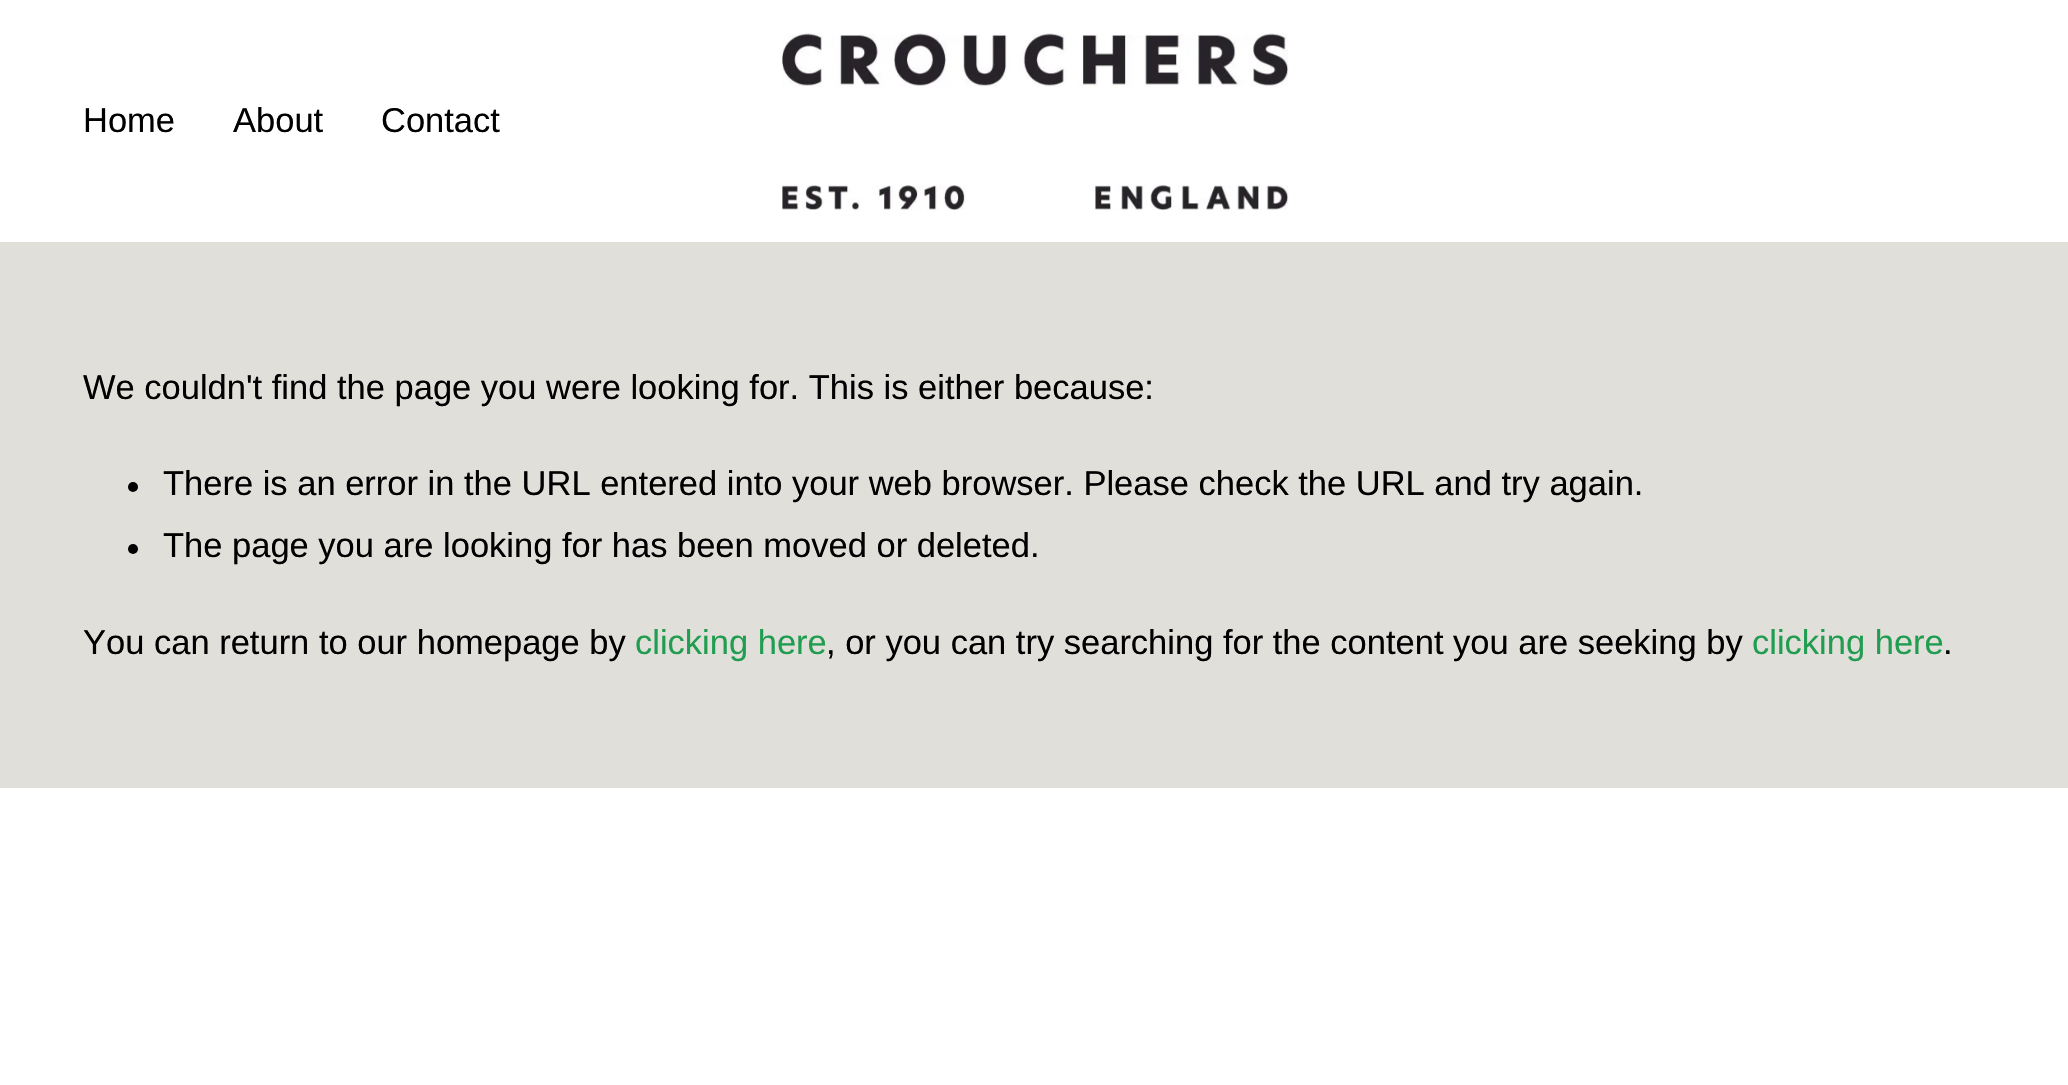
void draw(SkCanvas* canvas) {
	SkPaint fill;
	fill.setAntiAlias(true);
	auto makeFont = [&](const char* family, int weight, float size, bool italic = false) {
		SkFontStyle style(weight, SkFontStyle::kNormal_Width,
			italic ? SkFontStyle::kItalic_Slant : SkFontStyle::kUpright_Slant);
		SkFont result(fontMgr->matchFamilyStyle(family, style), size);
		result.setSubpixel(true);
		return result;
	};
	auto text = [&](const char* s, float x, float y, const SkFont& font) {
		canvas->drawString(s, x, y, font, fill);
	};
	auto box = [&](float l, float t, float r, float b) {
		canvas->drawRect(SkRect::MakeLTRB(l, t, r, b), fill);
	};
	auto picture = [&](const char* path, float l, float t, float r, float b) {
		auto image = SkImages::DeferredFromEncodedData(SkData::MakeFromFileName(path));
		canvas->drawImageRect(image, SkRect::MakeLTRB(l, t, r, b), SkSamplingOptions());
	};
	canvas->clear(0xFFE1DFD9);
	fill.setColor(0xFFFFFFFF);
	box(0, 0, 2068, 242);
	picture("image0.png", 782, 33, 1289, 210);
	fill.setColor(0xFF000000);
	canvas->drawCircle(133, 487, 5, fill);
	canvas->drawCircle(133, 549, 5, fill);
	fill.setColor(0xFFFFFFFF);
	box(0, 788, 2068, 1085);
	auto font1 = makeFont("Liberation Sans", 400, 34.5f);
	fill.setColor(0xFF000000);
	text("Home", 83, 132, font1);
	text("About", 233, 132, font1);
	text("Contact", 381, 132, font1);
	text("We couldn't find the page you were looking for. This is either because:", 83, 399, font1);
	text("There is an error in the URL entered into your web browser. Please check the URL and try again.", 163, 495, font1);
	text("The page you are looking for has been moved or deleted.", 163, 557, font1);
	text("You can return to our homepage by", 83, 654, font1);
	fill.setColor(0xFF209D50);
	text("clicking here", 635, 654, font1);
	fill.setColor(0xFF000000);
	text(", or you can try searching for the content you are seeking by", 826, 654, font1);
	fill.setColor(0xFF209D50);
	text("clicking here", 1752, 654, font1);
	fill.setColor(0xFF000000);
	text(".", 1943, 654, font1);
}
